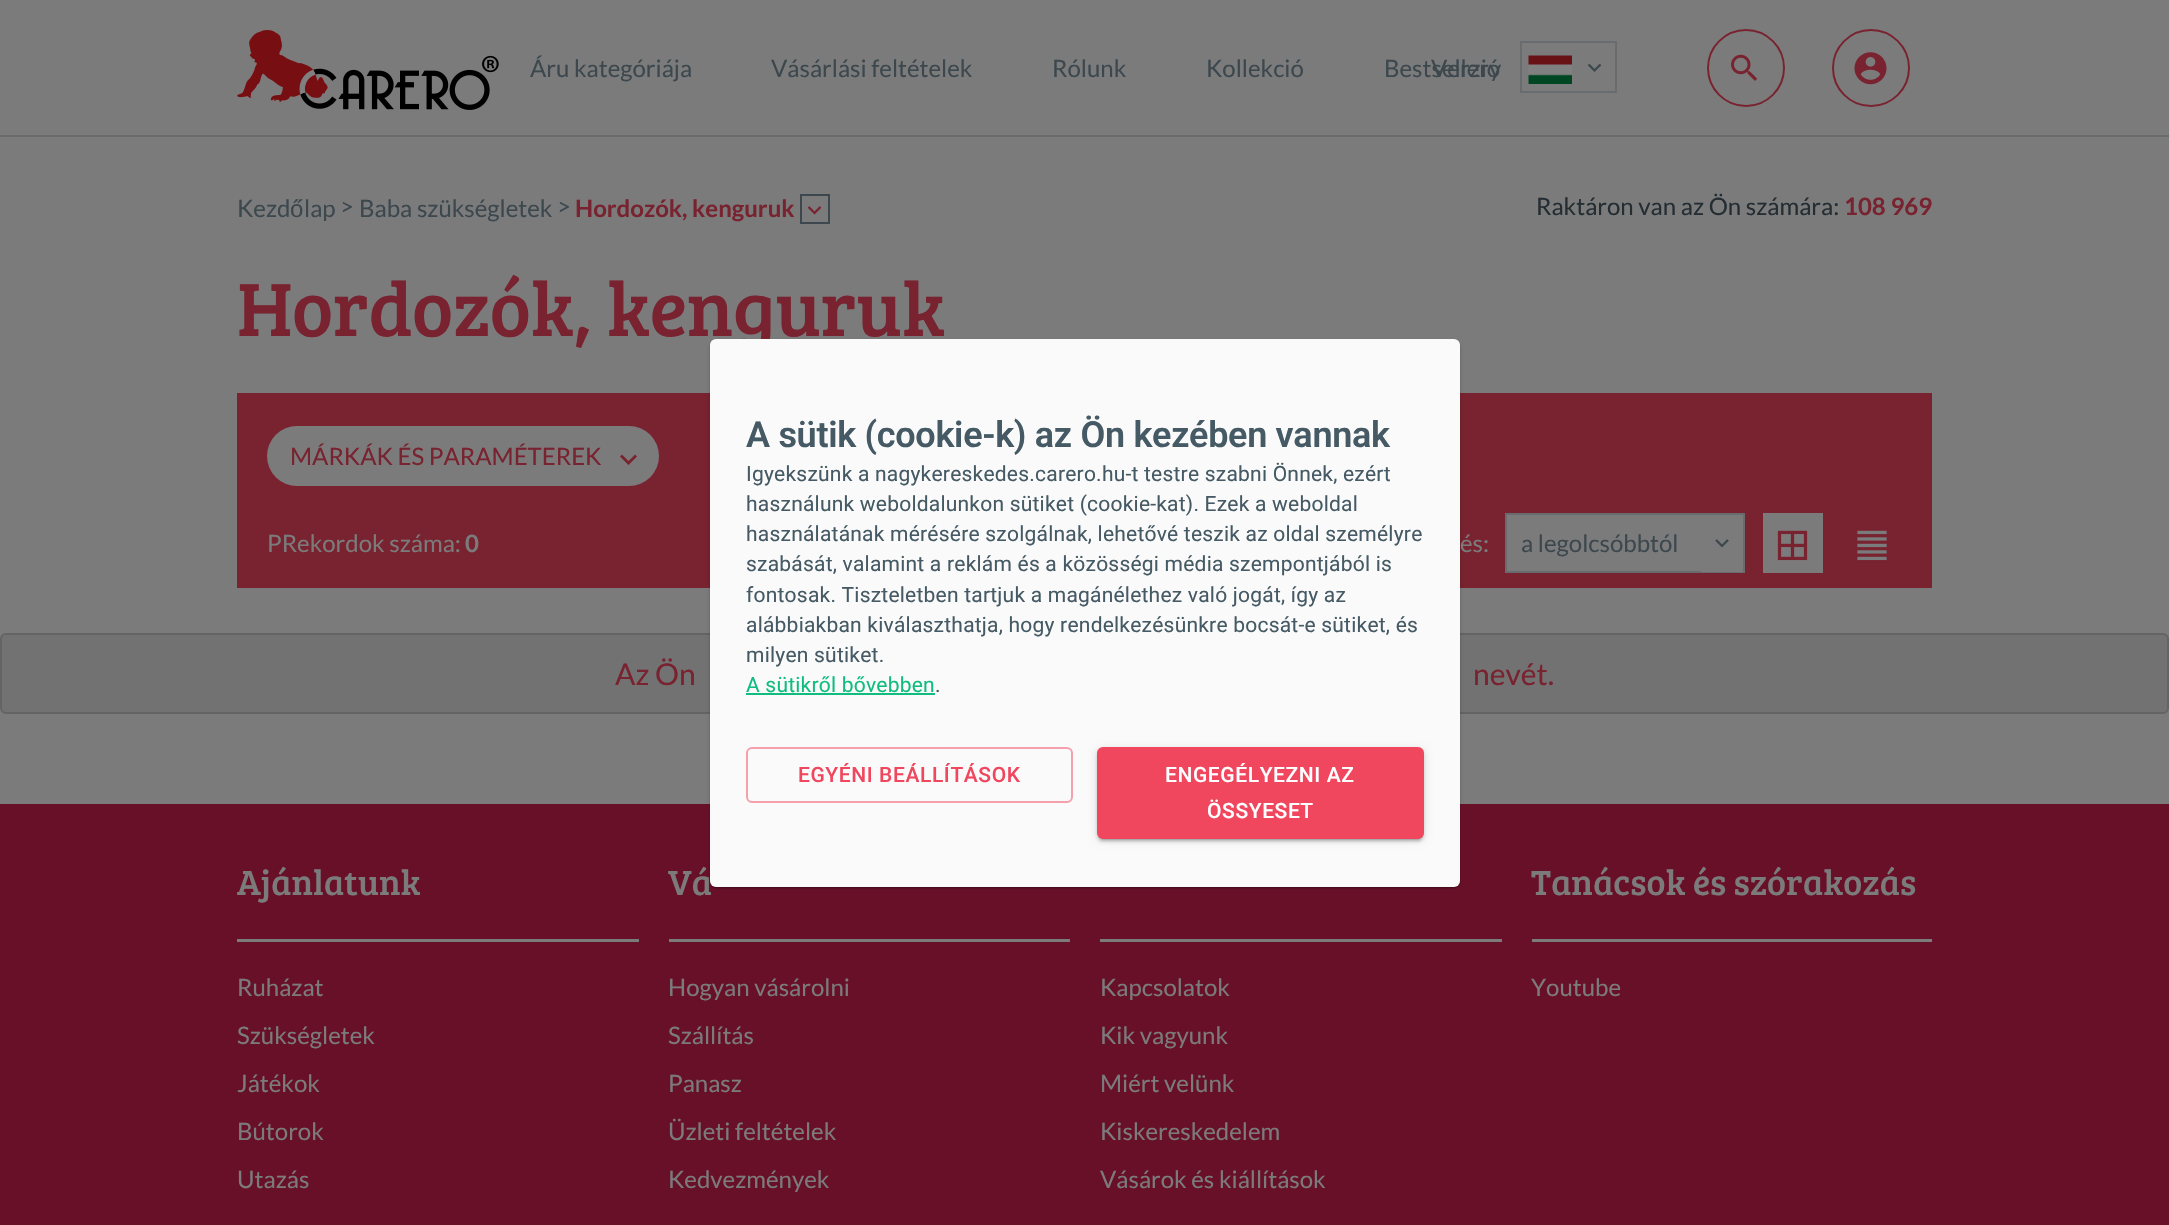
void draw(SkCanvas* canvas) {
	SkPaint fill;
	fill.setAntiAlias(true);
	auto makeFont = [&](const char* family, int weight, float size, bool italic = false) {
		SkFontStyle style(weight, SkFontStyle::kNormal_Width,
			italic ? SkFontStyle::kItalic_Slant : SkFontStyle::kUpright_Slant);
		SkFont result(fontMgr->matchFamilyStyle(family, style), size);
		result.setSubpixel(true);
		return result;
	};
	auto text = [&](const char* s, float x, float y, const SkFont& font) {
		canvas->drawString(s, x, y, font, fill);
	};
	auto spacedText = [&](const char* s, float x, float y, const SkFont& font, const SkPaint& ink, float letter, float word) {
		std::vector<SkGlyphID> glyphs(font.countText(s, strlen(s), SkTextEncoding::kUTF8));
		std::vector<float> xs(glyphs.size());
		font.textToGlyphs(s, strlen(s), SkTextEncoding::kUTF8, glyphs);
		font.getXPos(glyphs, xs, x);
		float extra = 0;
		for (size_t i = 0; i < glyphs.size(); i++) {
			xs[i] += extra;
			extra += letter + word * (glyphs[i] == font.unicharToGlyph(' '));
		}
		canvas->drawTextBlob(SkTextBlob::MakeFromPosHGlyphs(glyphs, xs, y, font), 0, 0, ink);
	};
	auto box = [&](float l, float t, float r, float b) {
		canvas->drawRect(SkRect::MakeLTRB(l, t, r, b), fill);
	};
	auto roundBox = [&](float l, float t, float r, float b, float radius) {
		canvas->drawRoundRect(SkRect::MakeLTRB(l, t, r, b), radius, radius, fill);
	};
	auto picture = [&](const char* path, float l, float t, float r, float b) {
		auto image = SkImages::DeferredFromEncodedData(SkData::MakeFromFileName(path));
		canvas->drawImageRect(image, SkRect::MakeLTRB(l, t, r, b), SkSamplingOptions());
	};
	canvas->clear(0xFF7B7B7C);
	fill.setColor(0xFF686C6E);
	box(0, 135, 2169, 137);
	picture("image0.png", 237, 30, 499, 110);
	fill.setStyle(SkPaint::kStroke_Style);
	fill.setStrokeWidth(2);
	fill.setColor(0xFF78232F);
	canvas->drawCircle(1746, 68, 38, fill);
	picture("image1.png", 1731, 54, 1758, 81);
	canvas->drawCircle(1871, 68, 38, fill);
	picture("image2.png", 1854, 52, 1887, 85);
	fill.setColor(0xFF686C6E);
	canvas->drawRect(SkRect::MakeLTRB(1521, 42, 1616, 92), fill);
	picture("image3.png", 1528, 55, 1572, 84);
	picture("image4.png", 1587, 63, 1602, 72);
	fill.setColor(0xFF3C484E);
	canvas->drawRect(SkRect::MakeLTRB(801, 195, 829, 223), fill);
	picture("image5.png", 807, 206, 822, 215);
	fill.setStyle(SkPaint::kFill_Style);
	fill.setColor(0xFF78232F);
	box(237, 393, 1932, 588);
	fill.setColor(0xFF7B7B7C);
	roundBox(267, 426, 659, 486, 30);
	picture("image6.png", 620, 454, 637, 465);
	box(1507, 515, 1701, 571);
	fill.setStyle(SkPaint::kStroke_Style);
	fill.setColor(0xFF686C6E);
	canvas->drawRect(SkRect::MakeLTRB(1506, 514, 1744, 572), fill);
	fill.setStyle(SkPaint::kFill_Style);
	fill.setColor(0xFF7B7B7C);
	box(1701, 515, 1743, 572);
	picture("image7.png", 1715, 539, 1729, 548);
	box(1763, 513, 1823, 573);
	picture("image8.png", 1777, 530, 1808, 561);
	picture("image9.png", 1857, 530, 1887, 561);
	fill.setColor(0xFF727272);
	canvas->drawRoundRect(SkRect::MakeLTRB(1, 634, 2168, 713), 5, 5, fill);
	fill.setStyle(SkPaint::kStroke_Style);
	fill.setColor(0xFF656464);
	canvas->drawRoundRect(SkRect::MakeLTRB(1, 634, 2168, 713), 5, 5, fill);
	fill.setStyle(SkPaint::kFill_Style);
	fill.setColor(0xFF691029);
	box(0, 804, 2169, 1225);
	fill.setColor(0xFF7B7B7C);
	box(237, 939, 639, 942);
	box(669, 939, 1070, 942);
	box(1532, 939, 1932, 942);
	box(1100, 939, 1502, 942);
	fill.setColor(0x1F000000);
	fill.setMaskFilter(SkMaskFilter::MakeBlur(kNormal_SkBlurStyle, 2));
	canvas->drawRoundRect(SkRect::MakeLTRB(710, 341, 1460, 888), 6, 6, fill);
	fill.setMaskFilter(nullptr);
	fill.setColor(0x24000000);
	fill.setMaskFilter(SkMaskFilter::MakeBlur(kNormal_SkBlurStyle, 1));
	canvas->drawRoundRect(SkRect::MakeLTRB(710, 341, 1460, 888), 6, 6, fill);
	fill.setMaskFilter(nullptr);
	fill.setColor(0x33000000);
	fill.setMaskFilter(SkMaskFilter::MakeBlur(kNormal_SkBlurStyle, 1));
	canvas->drawRoundRect(SkRect::MakeLTRB(711, 344, 1458, 888), 5, 5, fill);
	fill.setMaskFilter(nullptr);
	auto font1 = makeFont("Lato", 400, 24);
	fill.setColor(0xFF3C484E);
	text("Áru kategóriája", 530, 77, font1);
	text("Vásárlási feltételek", 771, 77, font1);
	text("Rólunk", 1052, 77, font1);
	text("Kollekció", 1206, 77, font1);
	text("Bestsellery", 1384, 77, font1);
	text("Verzió", 1431, 77, font1);
	text("Kezd", 237, 217, font1);
	auto font2 = makeFont("Liberation Sans", 400, 24);
	text("ő", 290, 217, font2);
	text("lap", 304, 217, font1);
	text(">", 340, 215, font1);
	text("Baba szükségletek", 359, 217, font1);
	text(">", 557, 215, font1);
	auto font3 = makeFont("Lato", 700, 24);
	fill.setColor(0xFF78232F);
	text("Hordozók, kenguruk", 575, 217, font3);
	fill.setColor(0xFF232D32);
	text("Raktáron van az Ön számára:", 1536, 215, font1);
	fill.setColor(0xFF78232F);
	text("108 969", 1844, 215, font3);
	auto font4 = makeFont("Bree Serif", 400, 78);
	spacedText("Hordozók, kenguruk", 237, 336, font4, fill, -0.5f, 0);
	text("MÁRKÁK ÉS PARAMÉTEREK", 290, 465, font1);
	fill.setColor(0xFF7B7B7C);
	text("PRekordok száma:", 267, 552, font1);
	text("0", 465, 552, font3);
	text("és:", 1460, 552, font1);
	fill.setColor(0xFF3C484E);
	text("a legolcsóbbtól", 1521, 552, font1);
	auto font5 = makeFont("Lato", 400, 30);
	fill.setColor(0xFF78232F);
	text("Az Ön", 615, 685, font5);
	text("nevét.", 1473, 685, font5);
	auto font6 = makeFont("Bree Serif", 400, 36);
	fill.setColor(0xFF7B7B7C);
	text("Ajánlatunk", 237, 895, font6);
	text("Ruházat", 237, 996, font1);
	text("Szükségletek", 237, 1044, font1);
	text("Játékok", 237, 1092, font1);
	text("Bútorok", 237, 1140, font1);
	text("Utazás", 237, 1188, font1);
	text("Vá", 668, 895, font6);
	text("Hogyan vásárolni", 668, 996, font1);
	text("Szállítás", 668, 1044, font1);
	text("Panasz", 668, 1092, font1);
	text("Üzleti feltételek", 668, 1140, font1);
	text("Kedvezmények", 668, 1188, font1);
	text("Tanácsok és szórakozás", 1531, 895, font6);
	text("Youtube", 1531, 996, font1);
	text("Kapcsolatok", 1100, 996, font1);
	text("Kik vagyunk", 1100, 1044, font1);
	text("Miért velünk", 1100, 1092, font1);
	text("Kiskereskedelem", 1100, 1140, font1);
	text("Vásárok és kiállítások", 1100, 1188, font1);
	fill.setColor(0xFFFAFAFA);
	roundBox(710, 339, 1460, 887, 6);
	auto font7 = makeFont("Roboto", 600, 36);
	fill.setColor(0xFF455A64);
	spacedText("A sütik (cookie-k) az Ön kezében vannak", 746, 447, font7, fill, -0.3f, 0);
	auto font8 = makeFont("Roboto", 400, 21);
	spacedText("Igyekszünk a nagykereskedes.carero.hu-t testre szabni Önnek, ezért", 746, 481, font8, fill, 0.22f, 0);
	spacedText("használunk weboldalunkon sütiket (cookie-kat). Ezek a weboldal", 746, 511, font8, fill, 0.22f, 0);
	spacedText("használatának mérésére szolgálnak, lehetővé teszik az oldal személyre", 746, 541, font8, fill, 0.22f, 0);
	spacedText("szabását, valamint a reklám és a közösségi média szempontjából is", 746, 571, font8, fill, 0.22f, 0);
	spacedText("fontosak. Tiszteletben tartjuk a magánélethez való jogát, így az", 746, 602, font8, fill, 0.22f, 0);
	spacedText("alábbiakban kiválaszthatja, hogy rendelkezésünkre bocsát-e sütiket, és", 746, 632, font8, fill, 0.22f, 0);
	spacedText("milyen sütiket.", 746, 662, font8, fill, 0.22f, 0);
	fill.setColor(0xFF10BD80);
	spacedText("A sütikről bővebben", 746, 692, font8, fill, 0.22f, 0);
	box(746, 693, 935, 695);
	fill.setColor(0xFF455A64);
	spacedText(".", 935, 692, font8, fill, 0.22f, 0);
	fill.setStyle(SkPaint::kStroke_Style);
	fill.setColor(0xFFF5A0AC);
	canvas->drawRoundRect(SkRect::MakeLTRB(747, 748, 1072, 802), 5, 5, fill);
	auto font9 = makeFont("Roboto", 500, 21);
	fill.setStyle(SkPaint::kFill_Style);
	fill.setColor(0xFFF0465E);
	spacedText("EGYÉNI BEÁLLÍTÁSOK", 798, 782, font9, fill, 0.6f, 0);
	fill.setColor(0x1F000000);
	fill.setMaskFilter(SkMaskFilter::MakeBlur(kNormal_SkBlurStyle, 4));
	canvas->drawRoundRect(SkRect::MakeLTRB(1097, 749, 1424, 840), 6, 6, fill);
	fill.setMaskFilter(nullptr);
	fill.setColor(0x24000000);
	fill.setMaskFilter(SkMaskFilter::MakeBlur(kNormal_SkBlurStyle, 1.5f));
	canvas->drawRoundRect(SkRect::MakeLTRB(1097, 750, 1424, 842), 6, 6, fill);
	fill.setMaskFilter(nullptr);
	fill.setColor(0x33000000);
	fill.setMaskFilter(SkMaskFilter::MakeBlur(kNormal_SkBlurStyle, 1));
	canvas->drawRoundRect(SkRect::MakeLTRB(1100, 755, 1421, 840), 3, 3, fill);
	fill.setMaskFilter(nullptr);
	fill.setColor(0xFFF0465E);
	roundBox(1097, 747, 1424, 839, 6);
	fill.setColor(0xFFFFFFFF);
	spacedText("ENGEGÉLYEZNI AZ", 1165, 782, font9, fill, 0.6f, 0);
	spacedText("ÖSSYESET", 1207, 818, font9, fill, 0.6f, 0);
}
